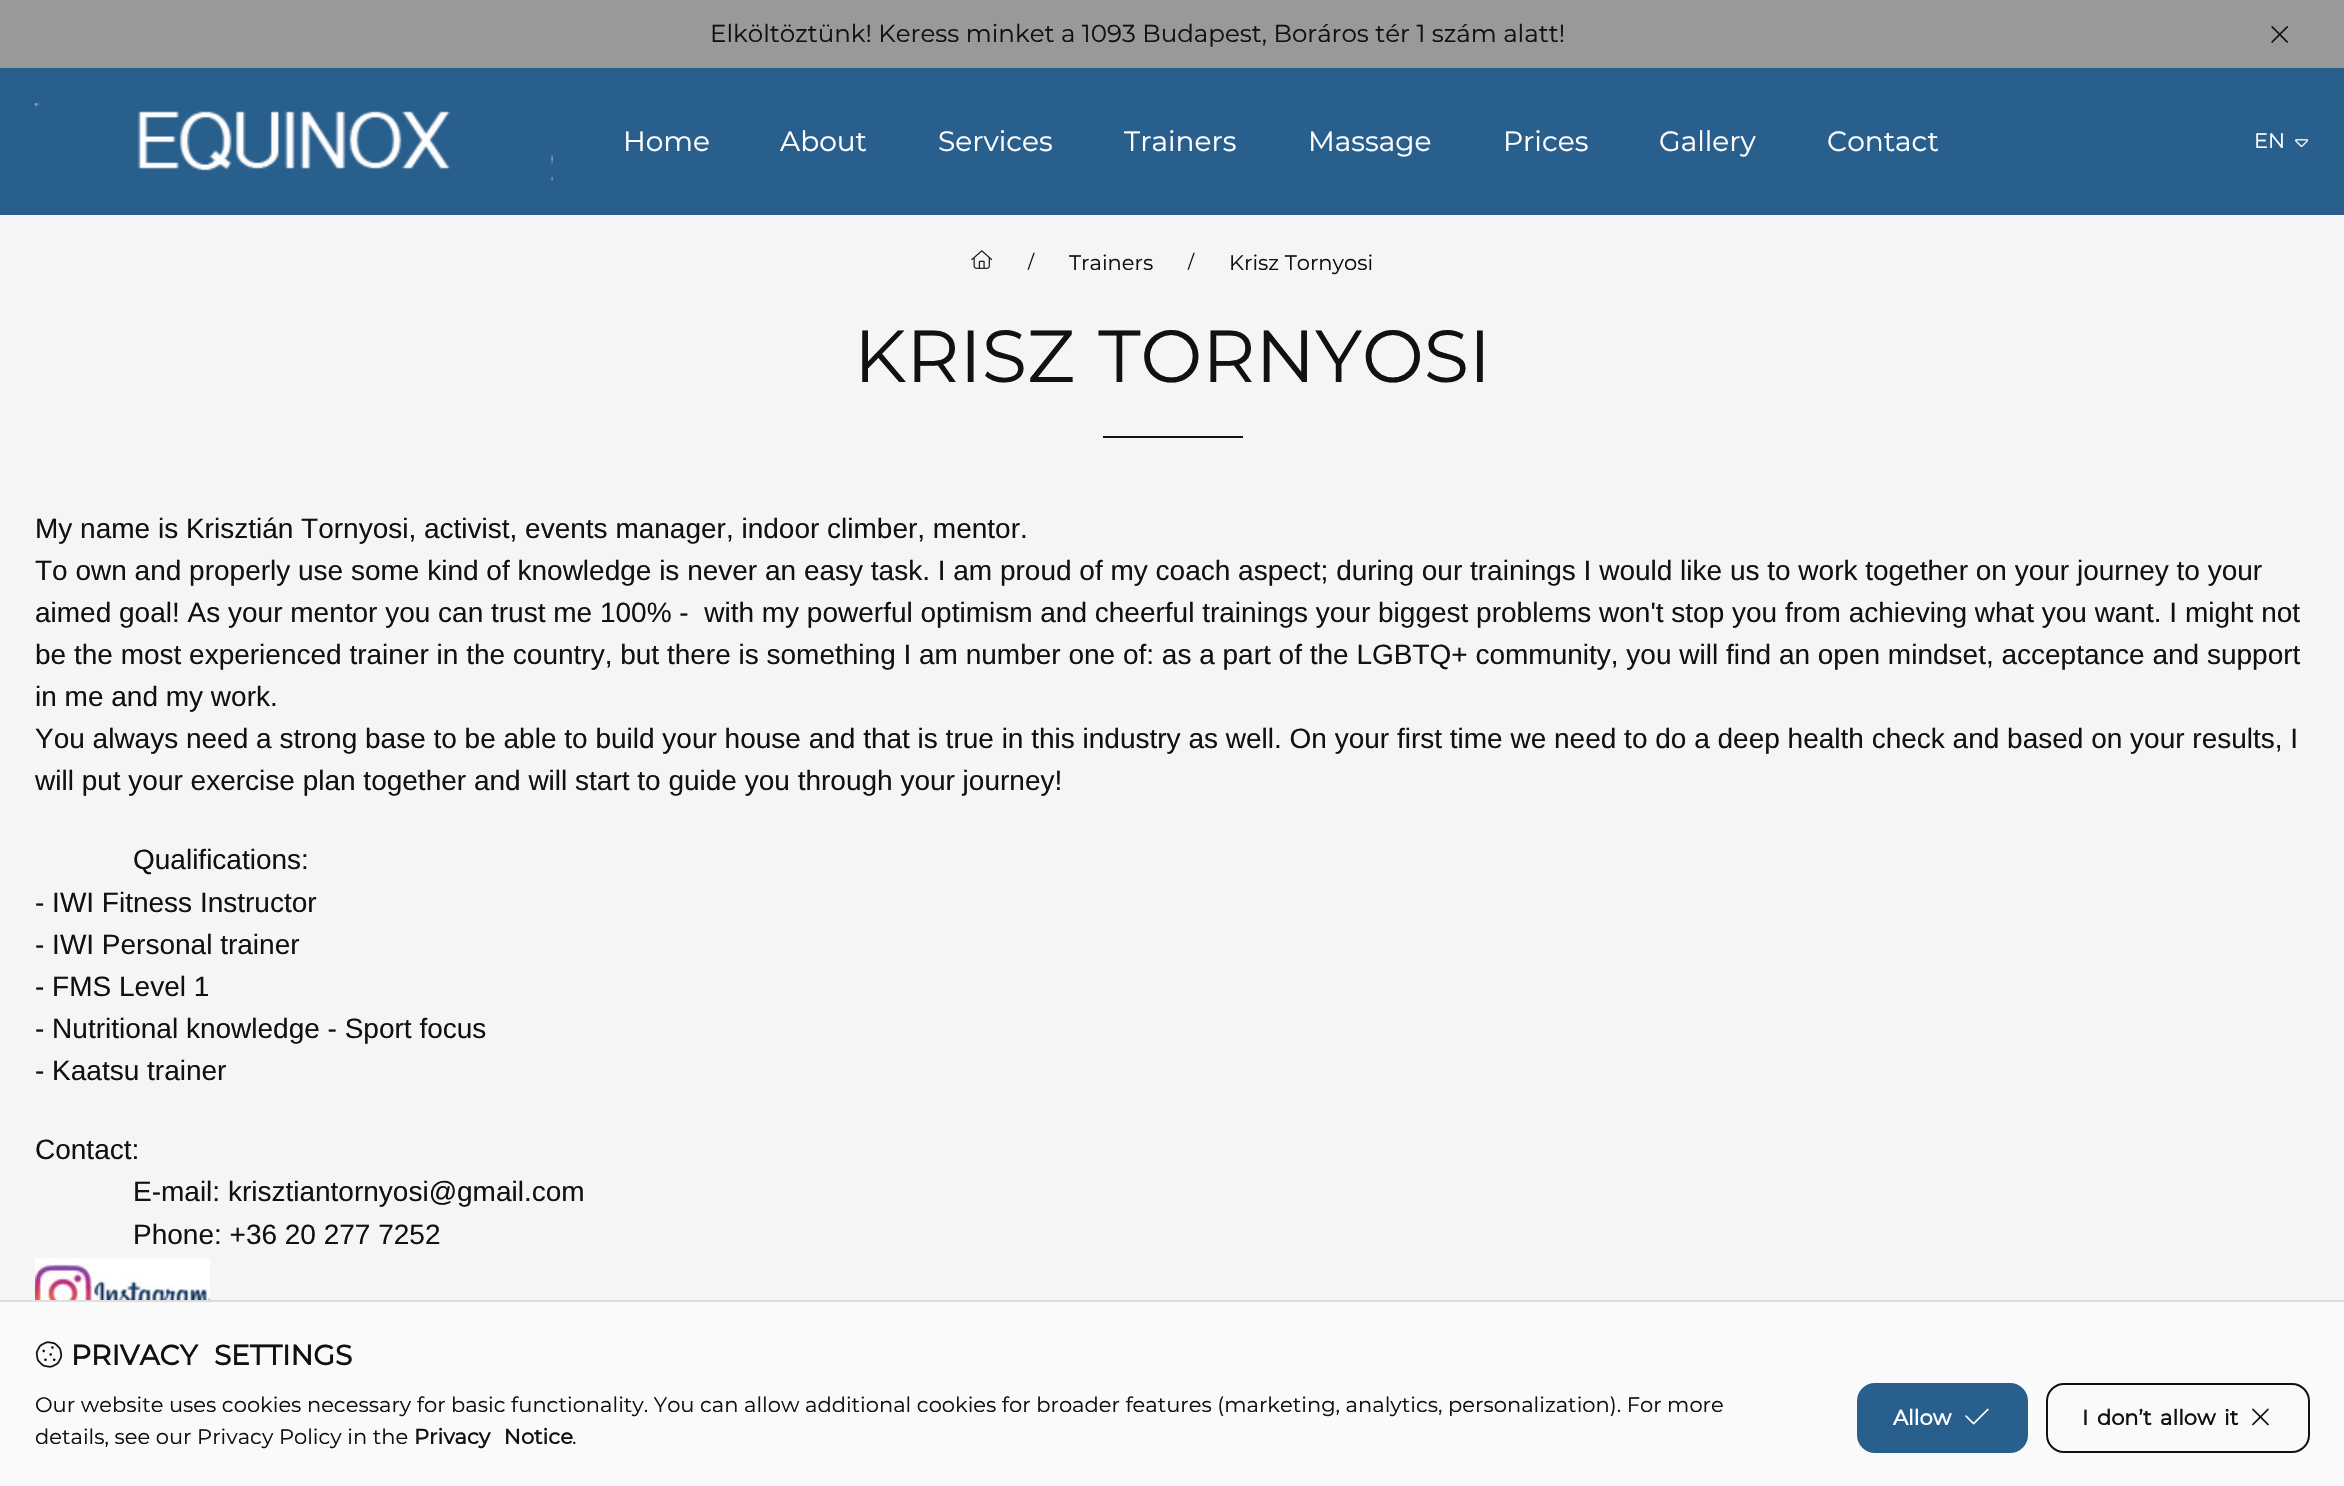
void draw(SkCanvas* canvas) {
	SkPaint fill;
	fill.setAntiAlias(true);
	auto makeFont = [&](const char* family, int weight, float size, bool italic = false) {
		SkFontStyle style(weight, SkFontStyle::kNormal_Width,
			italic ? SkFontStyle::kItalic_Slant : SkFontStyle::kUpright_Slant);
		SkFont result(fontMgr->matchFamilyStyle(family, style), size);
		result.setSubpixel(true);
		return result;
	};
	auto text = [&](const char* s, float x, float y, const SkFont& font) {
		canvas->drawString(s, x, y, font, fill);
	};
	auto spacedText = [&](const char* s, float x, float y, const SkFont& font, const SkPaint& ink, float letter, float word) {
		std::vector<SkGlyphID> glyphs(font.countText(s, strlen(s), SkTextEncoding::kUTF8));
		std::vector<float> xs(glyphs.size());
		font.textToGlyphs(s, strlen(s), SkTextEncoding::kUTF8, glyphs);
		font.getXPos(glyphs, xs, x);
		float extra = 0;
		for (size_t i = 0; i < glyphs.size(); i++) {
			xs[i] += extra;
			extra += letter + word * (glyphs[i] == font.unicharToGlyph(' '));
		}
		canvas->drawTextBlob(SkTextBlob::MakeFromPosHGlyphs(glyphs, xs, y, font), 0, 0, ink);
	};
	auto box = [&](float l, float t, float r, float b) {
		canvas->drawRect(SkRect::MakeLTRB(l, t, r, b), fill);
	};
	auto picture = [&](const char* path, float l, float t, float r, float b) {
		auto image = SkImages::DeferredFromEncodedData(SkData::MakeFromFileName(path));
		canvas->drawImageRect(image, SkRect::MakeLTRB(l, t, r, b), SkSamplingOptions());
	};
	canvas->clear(0xFFF5F5F5);
	fill.setColor(0xFF999999);
	box(0, 0, 2344, 68);
	picture("image0.png", 2271, 26, 2288, 43);
	fill.setColor(0xFF295F8D);
	box(0, 68, 2344, 215);
	picture("image1.png", 35, 103, 553, 181);
	picture("image2.png", 2295, 139, 2308, 147);
	picture("image3.png", 971, 250, 992, 269);
	fill.setColor(0xFF111111);
	box(1103, 436, 1243, 438);
	picture("image4.png", 35, 1258, 210, 1300);
	fill.setColor(0xFFFAFAFA);
	box(0, 1302, 2344, 1486);
	fill.setColor(0xFFDDDDDD);
	box(0, 1300, 2344, 1302);
	picture("image5.png", 35, 1341, 63, 1368);
	fill.setColor(0xFF295F8D);
	canvas->drawRoundRect(SkRect::MakeLTRB(1858, 1384, 2027, 1452), 17, 17, fill);
	fill.setStyle(SkPaint::kStroke_Style);
	fill.setStrokeWidth(2);
	canvas->drawRoundRect(SkRect::MakeLTRB(1858, 1384, 2027, 1452), 17, 17, fill);
	picture("image6.png", 1965, 1408, 1989, 1425);
	fill.setColor(0xFF111111);
	canvas->drawRoundRect(SkRect::MakeLTRB(2047, 1384, 2309, 1452), 17, 17, fill);
	picture("image7.png", 2252, 1408, 2269, 1426);
	auto font1 = makeFont("Montserrat", 400, 24.5f);
	fill.setStyle(SkPaint::kFill_Style);
	text("Elköltöztünk! Keress minket a 1093 Budapest, Boráros tér 1 szám alatt!", 710, 42, font1);
	auto font2 = makeFont("Montserrat", 400, 28);
	fill.setColor(0xFFFFFFFF);
	text("Home", 623, 151, font2);
	text("About", 780, 151, font2);
	text("Services", 938, 151, font2);
	text("Trainers", 1124, 151, font2);
	text("Massage", 1308, 151, font2);
	text("Prices", 1503, 151, font2);
	text("Gallery", 1659, 151, font2);
	text("Contact", 1827, 151, font2);
	auto font3 = makeFont("Montserrat", 400, 21);
	text("EN", 2254, 148, font3);
	auto font4 = makeFont("Montserrat", 400, 18);
	fill.setColor(0xFF111111);
	text("/", 1028, 268, font4);
	text("Trainers", 1069, 270, font3);
	text("/", 1188, 268, font4);
	text("Krisz Tornyosi", 1229, 270, font3);
	auto font5 = makeFont("Montserrat", 400, 73.5f);
	spacedText("KRISZ TORNYOSI", 854, 382, font5, fill, 0, 4);
	auto font6 = makeFont("Liberation Sans", 400, 28);
	text("My name is Krisztián Tornyosi, activist, events manager, indoor climber, mentor.", 35, 538, font6);
	text("To own and properly use some kind of knowledge is never an easy task. I am proud of my coach aspect; during our trainings I would like us to work together on your journey to your", 35, 580, font6);
	text("aimed goal! As your mentor you can trust me 100% -  with my powerful optimism and cheerful trainings your biggest problems won't stop you from achieving what you want. I might not", 35, 622, font6);
	text("be the most experienced trainer in the country, but there is something I am number one of: as a part of the LGBTQ+ community, you will find an open mindset, acceptance and support", 35, 664, font6);
	text("in me and my work.", 35, 706, font6);
	text("You always need a strong base to be able to build your house and that is true in this industry as well. On your first time we need to do a deep health check and based on your results, I", 35, 748, font6);
	text("will put your exercise plan together and will start to guide you through your journey!", 35, 790, font6);
	text("Qualifications:", 133, 869, font6);
	text("- IWI Fitness Instructor", 35, 912, font6);
	text("- IWI Personal trainer", 35, 954, font6);
	text("- FMS Level 1", 35, 996, font6);
	text("- Nutritional knowledge - Sport focus", 35, 1038, font6);
	text("- Kaatsu trainer", 35, 1080, font6);
	text("Contact:", 35, 1159, font6);
	text("E-mail: krisztiantornyosi@gmail.com", 133, 1201, font6);
	text("Phone: +36 20 277 7252", 133, 1244, font6);
	auto font7 = makeFont("Montserrat", 700, 28);
	spacedText("PRIVACY SETTINGS", 71, 1365, font7, fill, 0, 9);
	text("Our website uses cookies necessary for basic functionality. You can allow additional cookies for broader features (marketing, analytics, personalization). For more", 35, 1412, font3);
	text("details, see our Privacy Policy in the", 35, 1444, font3);
	auto font8 = makeFont("Montserrat", 700, 21);
	spacedText("Privacy Notice", 414, 1444, font8, fill, 0, 8);
	text(".", 572, 1444, font3);
	fill.setColor(0xFFFFFFFF);
	text("Allow", 1893, 1425, font8);
	fill.setColor(0xFF111111);
	spacedText("I don’t allow it", 2082, 1425, font8, fill, 0, 3);
}
